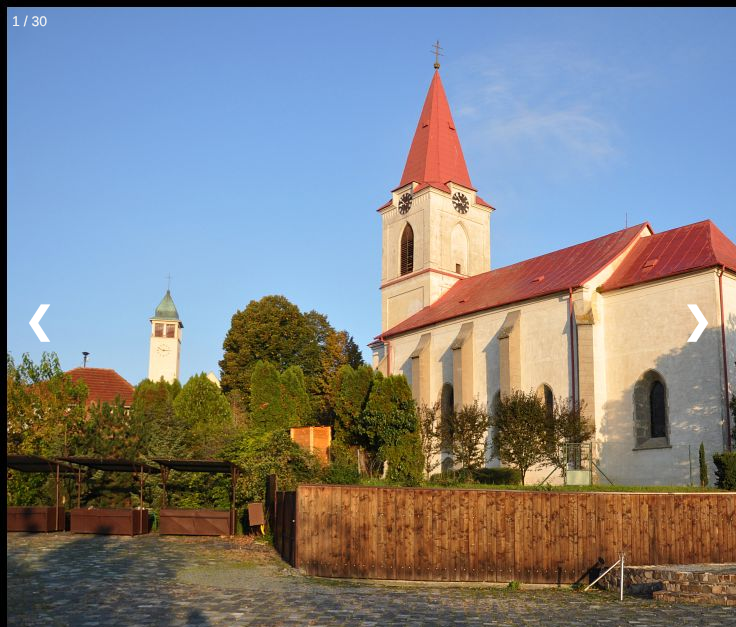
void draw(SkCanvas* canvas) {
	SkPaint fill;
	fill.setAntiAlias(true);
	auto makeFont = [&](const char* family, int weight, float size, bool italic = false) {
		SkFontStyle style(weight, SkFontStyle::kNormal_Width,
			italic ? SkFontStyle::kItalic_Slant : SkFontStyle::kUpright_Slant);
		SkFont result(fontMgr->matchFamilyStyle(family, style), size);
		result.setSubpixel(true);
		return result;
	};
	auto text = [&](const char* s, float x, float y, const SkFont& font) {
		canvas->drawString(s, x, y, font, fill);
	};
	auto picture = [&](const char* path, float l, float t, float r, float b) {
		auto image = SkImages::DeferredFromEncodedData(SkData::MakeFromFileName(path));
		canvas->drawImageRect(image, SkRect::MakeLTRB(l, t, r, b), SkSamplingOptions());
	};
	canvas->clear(0xFFFFFFFF);
	picture("image0.png", 0, 0, 736, 627);
	auto font1 = makeFont("Liberation Sans", 400, 14);
	fill.setColor(0xFFF2F2F2);
	text("1 / 30", 12, 26, font1);
	auto font2 = makeFont("DejaVu Sans", 700, 36);
	fill.setColor(0xFFFFFFFF);
	text("❮", 24, 333, font2);
	text("❯", 682, 333, font2);
}
